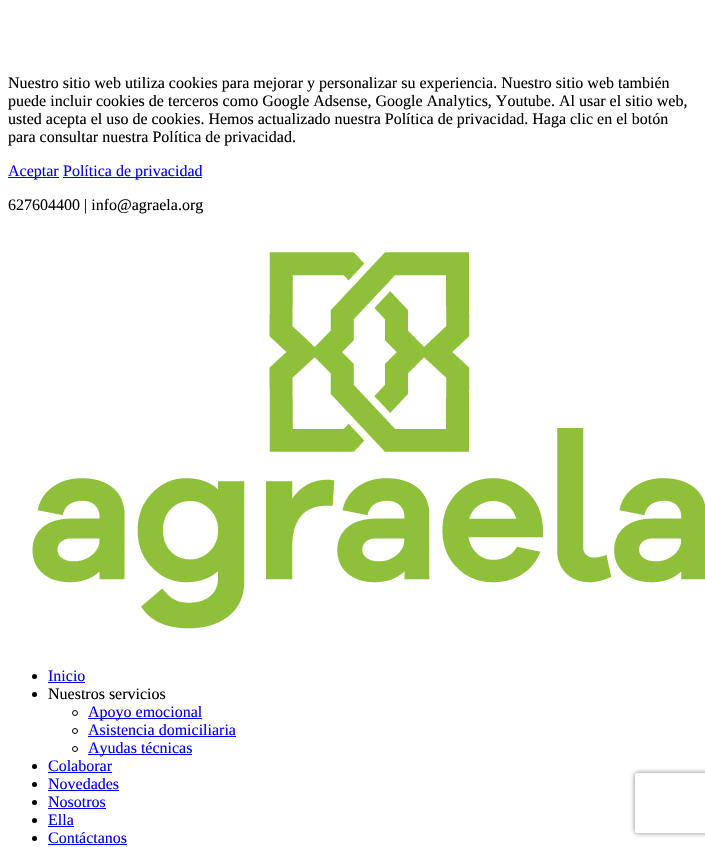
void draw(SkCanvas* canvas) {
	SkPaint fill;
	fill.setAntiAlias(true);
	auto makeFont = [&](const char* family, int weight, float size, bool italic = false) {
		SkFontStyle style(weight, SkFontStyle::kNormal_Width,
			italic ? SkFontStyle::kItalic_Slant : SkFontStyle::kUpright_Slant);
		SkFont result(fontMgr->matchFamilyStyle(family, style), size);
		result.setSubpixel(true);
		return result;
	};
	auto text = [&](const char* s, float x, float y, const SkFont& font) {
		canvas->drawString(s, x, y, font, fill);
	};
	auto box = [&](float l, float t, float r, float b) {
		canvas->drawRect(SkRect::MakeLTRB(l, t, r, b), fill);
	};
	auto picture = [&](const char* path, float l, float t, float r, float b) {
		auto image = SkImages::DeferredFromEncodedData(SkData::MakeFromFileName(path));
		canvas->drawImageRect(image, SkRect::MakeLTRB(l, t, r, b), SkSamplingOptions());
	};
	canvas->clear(0xFFFFFFFF);
	fill.setColor(0xFF0000EE);
	box(8, 177, 59, 178);
	box(63, 177, 202, 178);
	picture("image0.png", 32, 252, 705, 629);
	fill.setColor(0xFF000000);
	canvas->drawCircle(34.5f, 676.5f, 2.5f, fill);
	fill.setColor(0xFF0000EE);
	box(48, 682, 85, 683);
	fill.setColor(0xFF000000);
	canvas->drawCircle(34.5f, 694.5f, 2.5f, fill);
	fill.setStyle(SkPaint::kStroke_Style);
	fill.setStrokeWidth(1);
	canvas->drawCircle(75, 713, 2.5f, fill);
	fill.setStyle(SkPaint::kFill_Style);
	fill.setColor(0xFF0000EE);
	box(88, 718, 202, 719);
	fill.setStyle(SkPaint::kStroke_Style);
	fill.setColor(0xFF000000);
	canvas->drawCircle(75, 731, 2.5f, fill);
	fill.setStyle(SkPaint::kFill_Style);
	fill.setColor(0xFF0000EE);
	box(88, 736, 236, 737);
	fill.setStyle(SkPaint::kStroke_Style);
	fill.setColor(0xFF000000);
	canvas->drawCircle(75, 749, 2.5f, fill);
	fill.setStyle(SkPaint::kFill_Style);
	fill.setColor(0xFF0000EE);
	box(88, 754, 192, 755);
	fill.setColor(0xFF000000);
	canvas->drawCircle(34.5f, 766.5f, 2.5f, fill);
	fill.setColor(0xFF0000EE);
	box(48, 772, 112, 773);
	fill.setColor(0xFF000000);
	canvas->drawCircle(34.5f, 784.5f, 2.5f, fill);
	fill.setColor(0xFF0000EE);
	box(48, 790, 119, 791);
	fill.setColor(0xFF000000);
	canvas->drawCircle(34.5f, 802.5f, 2.5f, fill);
	fill.setColor(0xFF0000EE);
	box(48, 808, 106, 809);
	fill.setColor(0xFF000000);
	canvas->drawCircle(34.5f, 820.5f, 2.5f, fill);
	fill.setColor(0xFF0000EE);
	box(48, 826, 74, 827);
	fill.setColor(0xFF000000);
	canvas->drawCircle(34.5f, 838.5f, 2.5f, fill);
	fill.setColor(0xFF0000EE);
	box(48, 844, 127, 845);
	canvas->save();
	canvas->clipPath(SkPathBuilder(SkPathFillType::kEvenOdd).moveTo(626, 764).lineTo(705, 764).lineTo(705, 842).lineTo(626, 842).close().moveTo(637, 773).lineTo(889, 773).cubicTo(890, 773, 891, 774, 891, 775).lineTo(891, 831).cubicTo(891, 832, 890, 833, 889, 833).lineTo(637, 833).cubicTo(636, 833, 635, 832, 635, 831).lineTo(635, 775).cubicTo(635, 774, 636, 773, 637, 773).close().detach(), true);
	fill.setColor(0xFF808080);
	fill.setMaskFilter(SkMaskFilter::MakeBlur(kNormal_SkBlurStyle, 2.5f));
	canvas->drawRoundRect(SkRect::MakeLTRB(635, 773, 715, 833), 2, 2, fill);
	fill.setMaskFilter(nullptr);
	canvas->restore();
	auto font1 = makeFont("Liberation Serif", 400, 16);
	fill.setColor(0xFF000000);
	text("Nuestro sitio web utiliza cookies para mejorar y personalizar su experiencia. Nuestro sitio web también", 8, 88, font1);
	text("puede incluir cookies de terceros como Google Adsense, Google Analytics, Youtube. Al usar el sitio web,", 8, 106, font1);
	text("usted acepta el uso de cookies. Hemos actualizado nuestra Política de privacidad. Haga clic en el botón", 8, 124, font1);
	text("para consultar nuestra Política de privacidad.", 8, 142, font1);
	fill.setColor(0xFF0000EE);
	text("Aceptar", 8, 176, font1);
	text("Política de privacidad", 63, 176, font1);
	fill.setColor(0xFF000000);
	text("627604400 | info@agraela.org", 8, 210, font1);
	fill.setColor(0xFF0000EE);
	text("Inicio", 48, 681, font1);
	fill.setColor(0xFF000000);
	text("Nuestros servicios", 48, 699, font1);
	fill.setColor(0xFF0000EE);
	text("Apoyo emocional", 88, 717, font1);
	text("Asistencia domiciliaria", 88, 735, font1);
	text("Ayudas técnicas", 88, 753, font1);
	text("Colaborar", 48, 771, font1);
	text("Novedades", 48, 789, font1);
	text("Nosotros", 48, 807, font1);
	text("Ella", 48, 825, font1);
	text("Contáctanos", 48, 843, font1);
}
